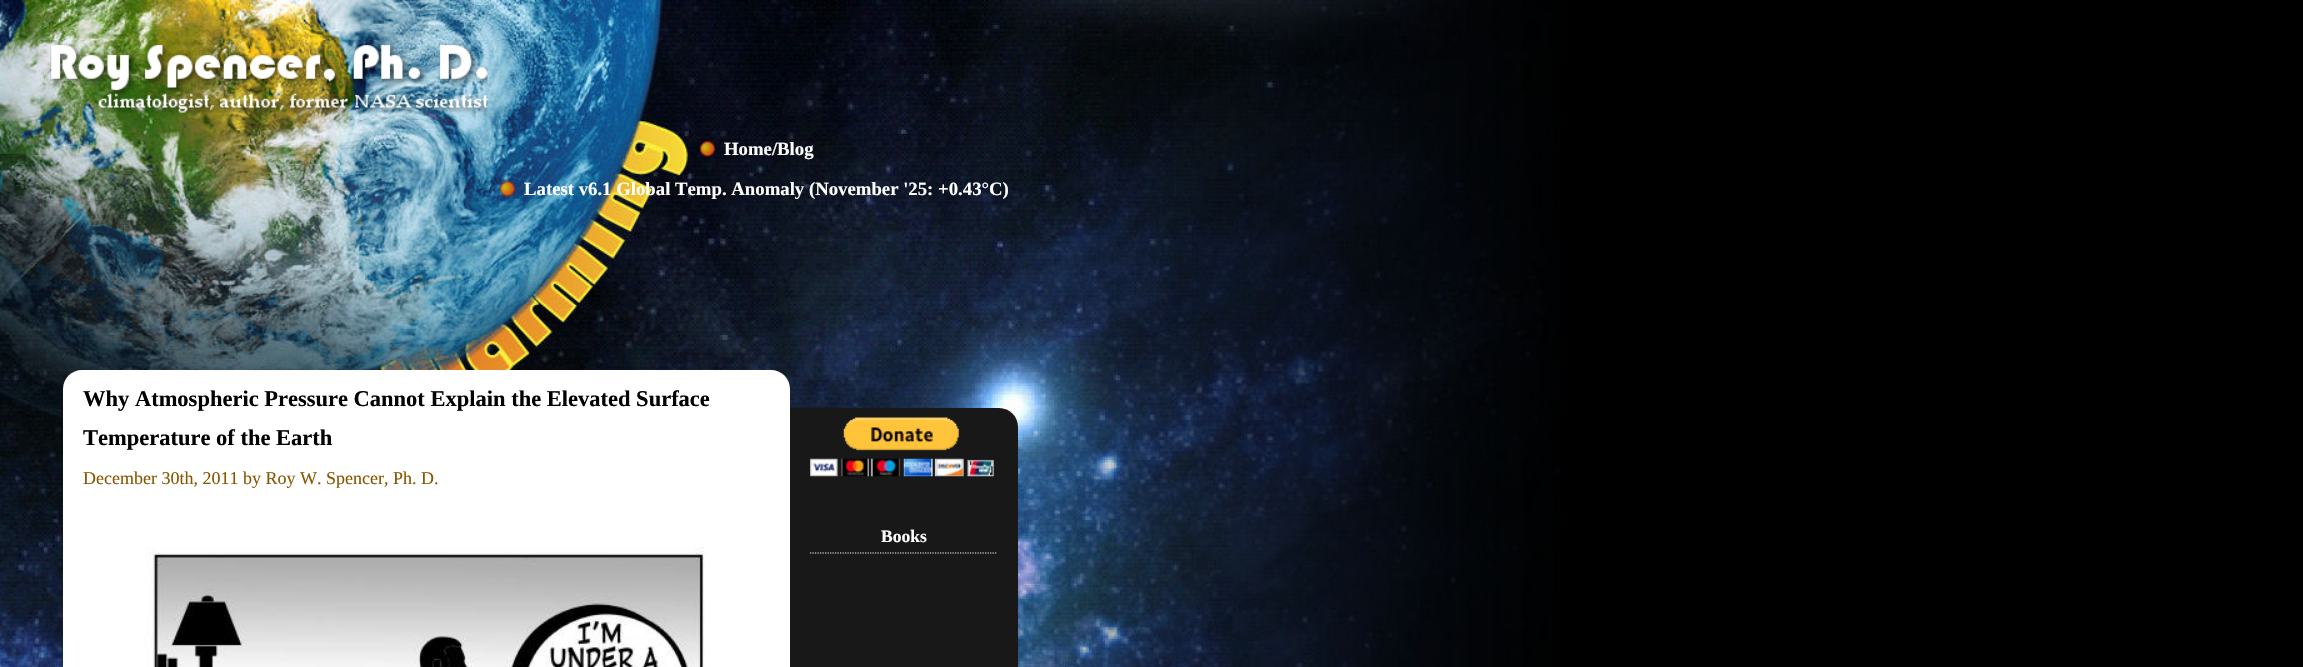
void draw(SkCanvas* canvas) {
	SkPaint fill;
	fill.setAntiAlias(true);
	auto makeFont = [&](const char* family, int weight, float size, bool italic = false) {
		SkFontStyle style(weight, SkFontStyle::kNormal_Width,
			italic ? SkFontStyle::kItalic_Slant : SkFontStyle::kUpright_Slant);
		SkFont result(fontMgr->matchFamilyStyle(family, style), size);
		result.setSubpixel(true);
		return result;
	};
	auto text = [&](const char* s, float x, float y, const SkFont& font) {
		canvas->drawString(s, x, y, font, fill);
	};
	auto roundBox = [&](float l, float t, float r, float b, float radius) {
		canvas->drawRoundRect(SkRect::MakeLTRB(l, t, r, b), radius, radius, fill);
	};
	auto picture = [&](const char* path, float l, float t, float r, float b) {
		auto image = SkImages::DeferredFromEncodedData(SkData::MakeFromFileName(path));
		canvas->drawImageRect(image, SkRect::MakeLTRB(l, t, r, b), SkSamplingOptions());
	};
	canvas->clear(0xFF000000);
	picture("image0.png", 0, 0, 1560, 667);
	picture("image1.png", 50, 43, 488, 113);
	picture("image2.png", 700, 141, 715, 157);
	picture("image3.png", 500, 181, 515, 197);
	fill.setColor(0xFFFFFFFF);
	roundBox(63, 370, 790, 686, 19);
	picture("image4.png", 145, 547, 705, 667);
	fill.setColor(0xFF181818);
	canvas->drawPath(SkPathBuilder().moveTo(790, 408).lineTo(999, 408).cubicTo(1009.5f, 408, 1018, 416.5f, 1018, 427).lineTo(1018, 667).cubicTo(1018, 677.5f, 1009.5f, 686, 999, 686).lineTo(790, 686).close().detach(), fill);
	picture("image5.png", 810, 417, 994, 477);
	fill.setStyle(SkPaint::kStroke_Style);
	fill.setStrokeWidth(1.2f);
	fill.setColor(0xFFFFFFFF);
	fill.setPathEffect(SkDashPathEffect::Make({{1.25f, 1.25f}}, 0));
	canvas->drawPath(SkPathBuilder().moveTo(810, 553).lineTo(997.5f, 553).detach(), fill);
	fill.setPathEffect(nullptr);
	auto font1 = makeFont("Liberation Serif", 700, 18.75f);
	fill.setStyle(SkPaint::kFill_Style);
	text("Home/Blog", 724, 155, font1);
	text("Latest v6.1 Global Temp. Anomaly (November '25: +0.43°C)", 524, 195, font1);
	auto font2 = makeFont("Liberation Serif", 700, 22.5f);
	fill.setColor(0xFF000000);
	text("Why Atmospheric Pressure Cannot Explain the Elevated Surface", 83, 406, font2);
	text("Temperature of the Earth", 83, 445, font2);
	auto font3 = makeFont("Liberation Serif", 400, 18);
	fill.setColor(0xFF885500);
	text("December 30th, 2011 by Roy W. Spencer, Ph. D.", 83, 484, font3);
	auto font4 = makeFont("Liberation Serif", 700, 17.5f);
	fill.setColor(0xFFFFFFFF);
	text("Books", 881, 542, font4);
}
